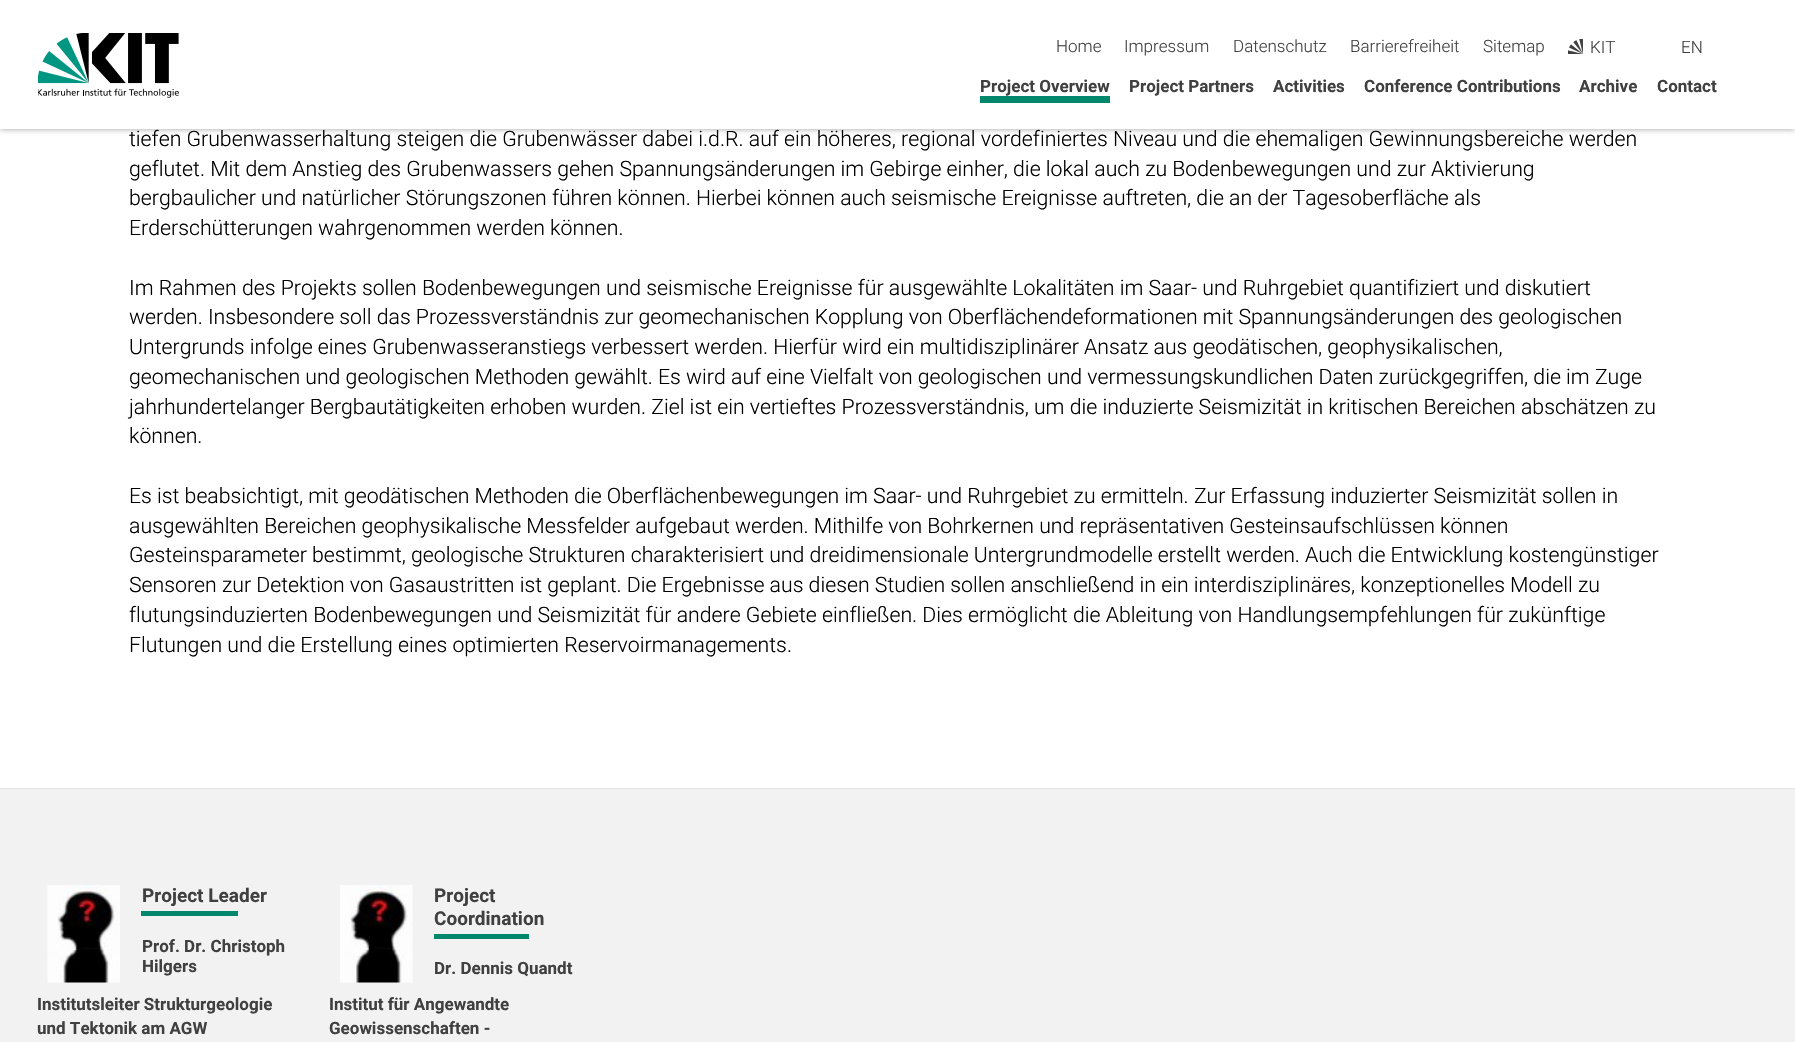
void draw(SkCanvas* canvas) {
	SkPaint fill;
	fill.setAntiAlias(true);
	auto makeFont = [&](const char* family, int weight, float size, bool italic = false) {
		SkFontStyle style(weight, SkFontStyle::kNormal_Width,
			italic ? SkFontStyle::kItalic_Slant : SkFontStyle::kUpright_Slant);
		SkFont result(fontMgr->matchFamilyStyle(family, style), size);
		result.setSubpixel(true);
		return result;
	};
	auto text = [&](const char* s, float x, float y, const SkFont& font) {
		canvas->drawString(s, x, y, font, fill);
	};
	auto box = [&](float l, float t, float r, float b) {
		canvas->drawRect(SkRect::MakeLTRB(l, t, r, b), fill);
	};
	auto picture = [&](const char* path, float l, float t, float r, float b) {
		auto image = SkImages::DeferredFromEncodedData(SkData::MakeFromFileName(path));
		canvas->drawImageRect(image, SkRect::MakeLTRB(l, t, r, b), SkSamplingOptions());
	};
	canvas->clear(0xFFFFFFFF);
	fill.setColor(0x80404040);
	fill.setMaskFilter(SkMaskFilter::MakeBlur(kNormal_SkBlurStyle, 3));
	canvas->drawRect(SkRect::MakeLTRB(0, 0, 1795, 129), fill);
	fill.setMaskFilter(nullptr);
	fill.setColor(0xFFFFFFFF);
	box(0, 0, 1795, 129);
	picture("image0.png", 38, 33, 179, 98);
	picture("image1.png", 1568, 39, 1583, 54);
	fill.setColor(0xFF00876C);
	box(980, 96, 1110, 103);
	fill.setColor(0xFFF2F2F2);
	box(0, 789, 1795, 1042);
	fill.setColor(0xFFE6E6E6);
	box(0, 788, 1795, 789);
	picture("image2.png", 47, 885, 120, 983);
	fill.setColor(0xFF00876C);
	box(141, 911, 238, 916);
	picture("image3.png", 340, 885, 413, 983);
	box(434, 934, 529, 939);
	auto font1 = makeFont("Roboto", 300, 17);
	fill.setColor(0xFF404040);
	text("Home", 1056, 52, font1);
	text("Impressum", 1124, 52, font1);
	text("Datenschutz", 1233, 52, font1);
	text("Barrierefreiheit", 1350, 52, font1);
	text("Sitemap", 1483, 52, font1);
	text("KIT", 1590, 53, font1);
	text("EN", 1681, 53, font1);
	auto font2 = makeFont("Roboto", 700, 17);
	text("Project Overview", 980, 92, font2);
	text("Project Partners", 1129, 92, font2);
	text("Activities", 1273, 92, font2);
	text("Conference Contributions", 1364, 92, font2);
	text("Archive", 1579, 92, font2);
	text("Contact", 1657, 92, font2);
	auto font3 = makeFont("Roboto", 300, 21.25f);
	fill.setColor(0xFF000000);
	text("tiefen Grubenwasserhaltung steigen die Grubenwässer dabei i.d.R. auf ein höheres, regional vordefiniertes Niveau und die ehemaligen Gewinnungsbereiche werden", 129, 146, font3);
	text("geflutet. Mit dem Anstieg des Grubenwassers gehen Spannungsänderungen im Gebirge einher, die lokal auch zu Bodenbewegungen und zur Aktivierung", 129, 176, font3);
	text("bergbaulicher und natürlicher Störungszonen führen können. Hierbei können auch seismische Ereignisse auftreten, die an der Tagesoberfläche als", 129, 205, font3);
	text("Erderschütterungen wahrgenommen werden können.", 129, 235, font3);
	text("Im Rahmen des Projekts sollen Bodenbewegungen und seismische Ereignisse für ausgewählte Lokalitäten im Saar- und Ruhrgebiet quantifiziert und diskutiert", 129, 295, font3);
	text("werden. Insbesondere soll das Prozessverständnis zur geomechanischen Kopplung von Oberflächendeformationen mit Spannungsänderungen des geologischen", 129, 324, font3);
	text("Untergrunds infolge eines Grubenwasseranstiegs verbessert werden. Hierfür wird ein multidisziplinärer Ansatz aus geodätischen, geophysikalischen,", 129, 354, font3);
	text("geomechanischen und geologischen Methoden gewählt. Es wird auf eine Vielfalt von geologischen und vermessungskundlichen Daten zurückgegriffen, die im Zuge", 129, 384, font3);
	text("jahrhundertelanger Bergbautätigkeiten erhoben wurden. Ziel ist ein vertieftes Prozessverständnis, um die induzierte Seismizität in kritischen Bereichen abschätzen zu", 129, 414, font3);
	text("können.", 129, 443, font3);
	text("Es ist beabsichtigt, mit geodätischen Methoden die Oberflächenbewegungen im Saar- und Ruhrgebiet zu ermitteln. Zur Erfassung induzierter Seismizität sollen in", 129, 503, font3);
	text("ausgewählten Bereichen geophysikalische Messfelder aufgebaut werden. Mithilfe von Bohrkernen und repräsentativen Gesteinsaufschlüssen können", 129, 533, font3);
	text("Gesteinsparameter bestimmt, geologische Strukturen charakterisiert und dreidimensionale Untergrundmodelle erstellt werden. Auch die Entwicklung kostengünstiger", 129, 562, font3);
	text("Sensoren zur Detektion von Gasaustritten ist geplant. Die Ergebnisse aus diesen Studien sollen anschließend in ein interdisziplinäres, konzeptionelles Modell zu", 129, 592, font3);
	text("flutungsinduzierten Bodenbewegungen und Seismizität für andere Gebiete einfließen. Dies ermöglicht die Ableitung von Handlungsempfehlungen für zukünftige", 129, 622, font3);
	text("Flutungen und die Erstellung eines optimierten Reservoirmanagements.", 129, 652, font3);
	auto font4 = makeFont("Roboto", 700, 19);
	fill.setColor(0xFF404040);
	text("Project Leader", 142, 902, font4);
	text("Prof. Dr. Christoph", 142, 952, font2);
	text("Hilgers", 142, 972, font2);
	text("Institutsleiter Strukturgeologie", 37, 1010, font2);
	text("und Tektonik am AGW", 37, 1034, font2);
	text("Project", 434, 902, font4);
	text("Coordination", 434, 925, font4);
	text("Dr. Dennis Quandt", 434, 974, font2);
	text("Institut für Angewandte", 329, 1010, font2);
	text("Geowissenschaften -", 329, 1034, font2);
}
